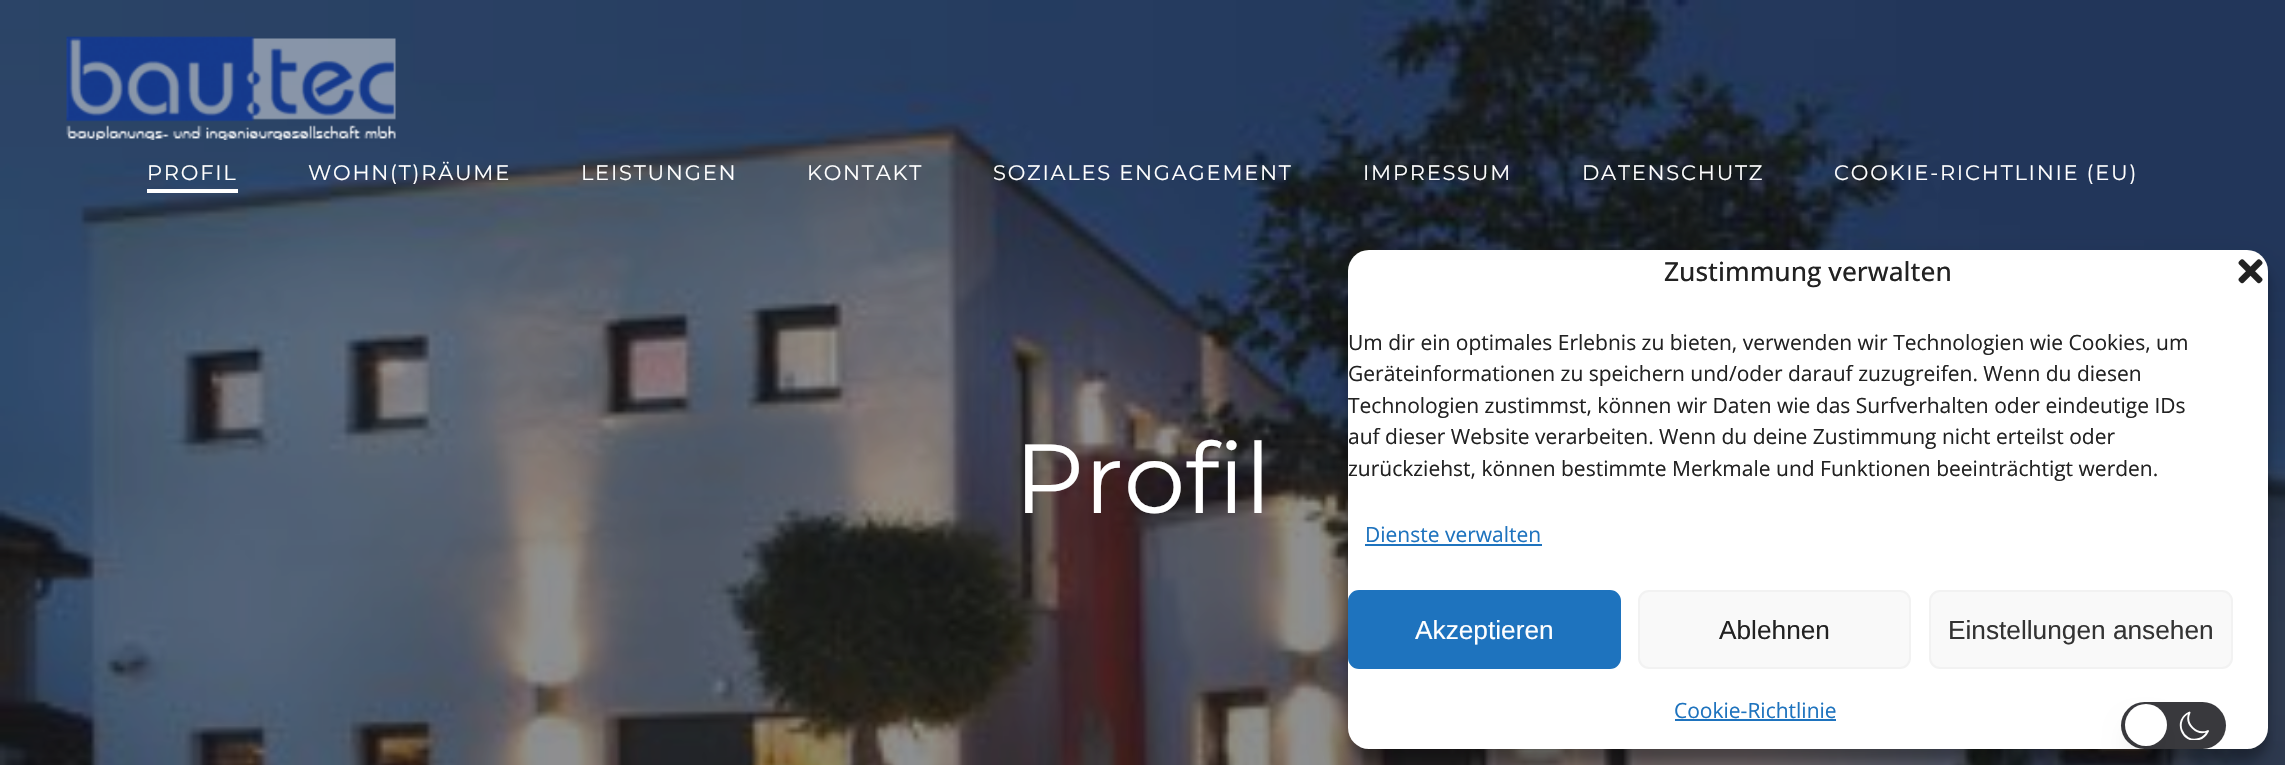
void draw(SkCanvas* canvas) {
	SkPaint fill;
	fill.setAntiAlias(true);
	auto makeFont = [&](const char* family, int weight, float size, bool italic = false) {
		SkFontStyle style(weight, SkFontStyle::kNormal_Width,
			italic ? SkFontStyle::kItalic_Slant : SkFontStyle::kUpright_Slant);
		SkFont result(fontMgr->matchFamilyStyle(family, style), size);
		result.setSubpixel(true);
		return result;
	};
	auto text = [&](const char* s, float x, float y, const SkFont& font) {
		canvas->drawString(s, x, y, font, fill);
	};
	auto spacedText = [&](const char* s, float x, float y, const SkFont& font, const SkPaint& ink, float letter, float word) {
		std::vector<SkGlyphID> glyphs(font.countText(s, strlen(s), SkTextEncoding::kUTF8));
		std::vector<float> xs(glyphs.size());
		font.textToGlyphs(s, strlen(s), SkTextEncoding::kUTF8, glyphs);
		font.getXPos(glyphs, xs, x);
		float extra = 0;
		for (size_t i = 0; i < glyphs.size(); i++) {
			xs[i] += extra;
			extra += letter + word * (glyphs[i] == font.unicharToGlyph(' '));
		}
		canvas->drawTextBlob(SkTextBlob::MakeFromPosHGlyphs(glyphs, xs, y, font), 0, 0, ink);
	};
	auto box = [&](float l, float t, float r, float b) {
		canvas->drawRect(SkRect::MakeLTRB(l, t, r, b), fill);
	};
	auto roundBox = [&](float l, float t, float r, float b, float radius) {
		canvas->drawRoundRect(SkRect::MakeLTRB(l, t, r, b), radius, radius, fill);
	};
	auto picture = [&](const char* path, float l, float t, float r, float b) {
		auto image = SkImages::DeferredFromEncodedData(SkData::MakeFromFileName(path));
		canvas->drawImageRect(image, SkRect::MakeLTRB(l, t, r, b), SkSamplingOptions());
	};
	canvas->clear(0xFFFFFFFF);
	picture("image1.png", 0, 0, 2285, 765);
	picture("image0.png", 66, 36, 396, 140);
	fill.setColor(0xFFFFFFFF);
	box(147, 189, 238, 193);
	fill.setColor(0x3B000000);
	fill.setMaskFilter(SkMaskFilter::MakeBlur(kNormal_SkBlurStyle, 5));
	canvas->drawRoundRect(SkRect::MakeLTRB(1348, 261, 2268, 760), 21, 21, fill);
	fill.setMaskFilter(nullptr);
	fill.setColor(0x30000000);
	fill.setMaskFilter(SkMaskFilter::MakeBlur(kNormal_SkBlurStyle, 17.5f));
	canvas->drawRoundRect(SkRect::MakeLTRB(1348, 268, 2268, 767), 21, 21, fill);
	fill.setMaskFilter(nullptr);
	fill.setColor(0xFFFFFFFF);
	roundBox(1348, 250, 2268, 749, 21);
	picture("image2.png", 2238, 259, 2263, 284);
	fill.setColor(0xFF1E73BE);
	box(1365, 544, 1542, 546);
	canvas->drawRoundRect(SkRect::MakeLTRB(1349, 591, 1620, 668), 10, 10, fill);
	fill.setStyle(SkPaint::kStroke_Style);
	fill.setStrokeWidth(2);
	canvas->drawRoundRect(SkRect::MakeLTRB(1349, 591, 1620, 668), 10, 10, fill);
	fill.setStyle(SkPaint::kFill_Style);
	fill.setColor(0xFFF9F9F9);
	canvas->drawRoundRect(SkRect::MakeLTRB(1639, 591, 1910, 668), 10, 10, fill);
	fill.setStyle(SkPaint::kStroke_Style);
	fill.setColor(0xFFF2F2F2);
	canvas->drawRoundRect(SkRect::MakeLTRB(1639, 591, 1910, 668), 10, 10, fill);
	fill.setStyle(SkPaint::kFill_Style);
	fill.setColor(0xFFF9F9F9);
	canvas->drawRoundRect(SkRect::MakeLTRB(1930, 591, 2232, 668), 10, 10, fill);
	fill.setStyle(SkPaint::kStroke_Style);
	fill.setColor(0xFFF2F2F2);
	canvas->drawRoundRect(SkRect::MakeLTRB(1930, 591, 2232, 668), 10, 10, fill);
	fill.setStyle(SkPaint::kFill_Style);
	fill.setColor(0xFF1E73BE);
	box(1675, 719, 1836, 721);
	fill.setColor(0xFF39393D);
	roundBox(2121, 702, 2226, 749, 23.5f);
	canvas->save();
	canvas->clipRect(SkRect::MakeLTRB(2179, 711, 2210, 740));
	fill.setStyle(SkPaint::kStroke_Style);
	fill.setStrokeWidth(1.9f);
	fill.setStrokeCap(SkPaint::kRound_Cap);
	fill.setStrokeJoin(SkPaint::kRound_Join);
	fill.setColor(0xFFFFFFFF);
	canvas->drawPath(SkPathBuilder().moveTo(2208, 731).cubicTo(2196.5f, 736, 2184.5f, 724, 2189.5f, 712.5f).cubicTo(2173, 719.5f, 2182, 744.5f, 2199, 739).cubicTo(2203, 738, 2206, 735, 2208, 731).close().detach(), fill);
	canvas->restore();
	fill.setStyle(SkPaint::kFill_Style);
	fill.setColor(0x1A000000);
	fill.setMaskFilter(SkMaskFilter::MakeBlur(kNormal_SkBlurStyle, 13));
	canvas->drawRoundRect(SkRect::MakeLTRB(2130, 726, 2161, 758), 15.5f, 15.5f, fill);
	fill.setMaskFilter(nullptr);
	fill.setColor(0xFFFFFFFF);
	canvas->drawCircle(2146, 725, 21, fill);
	auto font1 = makeFont("Montserrat", 400, 21);
	spacedText("PROFIL", 147, 180, font1, fill, 1.75f, 0);
	spacedText("WOHN(T)RÄUME", 308, 180, font1, fill, 1.75f, 0);
	spacedText("LEISTUNGEN", 581, 180, font1, fill, 1.75f, 0);
	spacedText("KONTAKT", 807, 180, font1, fill, 1.75f, 0);
	spacedText("SOZIALES ENGAGEMENT", 993, 180, font1, fill, 1.75f, 0);
	spacedText("IMPRESSUM", 1363, 180, font1, fill, 1.75f, 0);
	spacedText("DATENSCHUTZ", 1582, 180, font1, fill, 1.75f, 0);
	spacedText("COOKIE-RICHTLINIE (EU)", 1834, 180, font1, fill, 1.75f, 0);
	auto font2 = makeFont("Montserrat", 400, 98);
	text("Profil", 1014, 513, font2);
	auto font3 = makeFont("Open Sans", 500, 26.25f);
	fill.setColor(0xFF222222);
	text("Zustimmung verwalten", 1664, 281, font3);
	auto font4 = makeFont("Open Sans", 400, 21);
	text("Um dir ein optimales Erlebnis zu bieten, verwenden wir Technologien wie Cookies, um", 1348, 350, font4);
	text("Geräteinformationen zu speichern und/oder darauf zuzugreifen. Wenn du diesen", 1348, 381, font4);
	text("Technologien zustimmst, können wir Daten wie das Surfverhalten oder eindeutige IDs", 1348, 413, font4);
	text("auf dieser Website verarbeiten. Wenn du deine Zustimmung nicht erteilst oder", 1348, 444, font4);
	text("zurückziehst, können bestimmte Merkmale und Funktionen beeinträchtigt werden.", 1348, 476, font4);
	fill.setColor(0xFF1E73BE);
	text("Dienste verwalten", 1365, 542, font4);
	auto font5 = makeFont("Liberation Sans", 400, 26.25f);
	fill.setColor(0xFFFFFFFF);
	text("Akzeptieren", 1415, 639, font5);
	fill.setColor(0xFF222222);
	text("Ablehnen", 1719, 639, font5);
	fill.setColor(0xFF333333);
	text("Einstellungen ansehen", 1948, 639, font5);
	fill.setColor(0xFF1E73BE);
	text("Cookie-Richtlinie", 1674, 718, font4);
}
